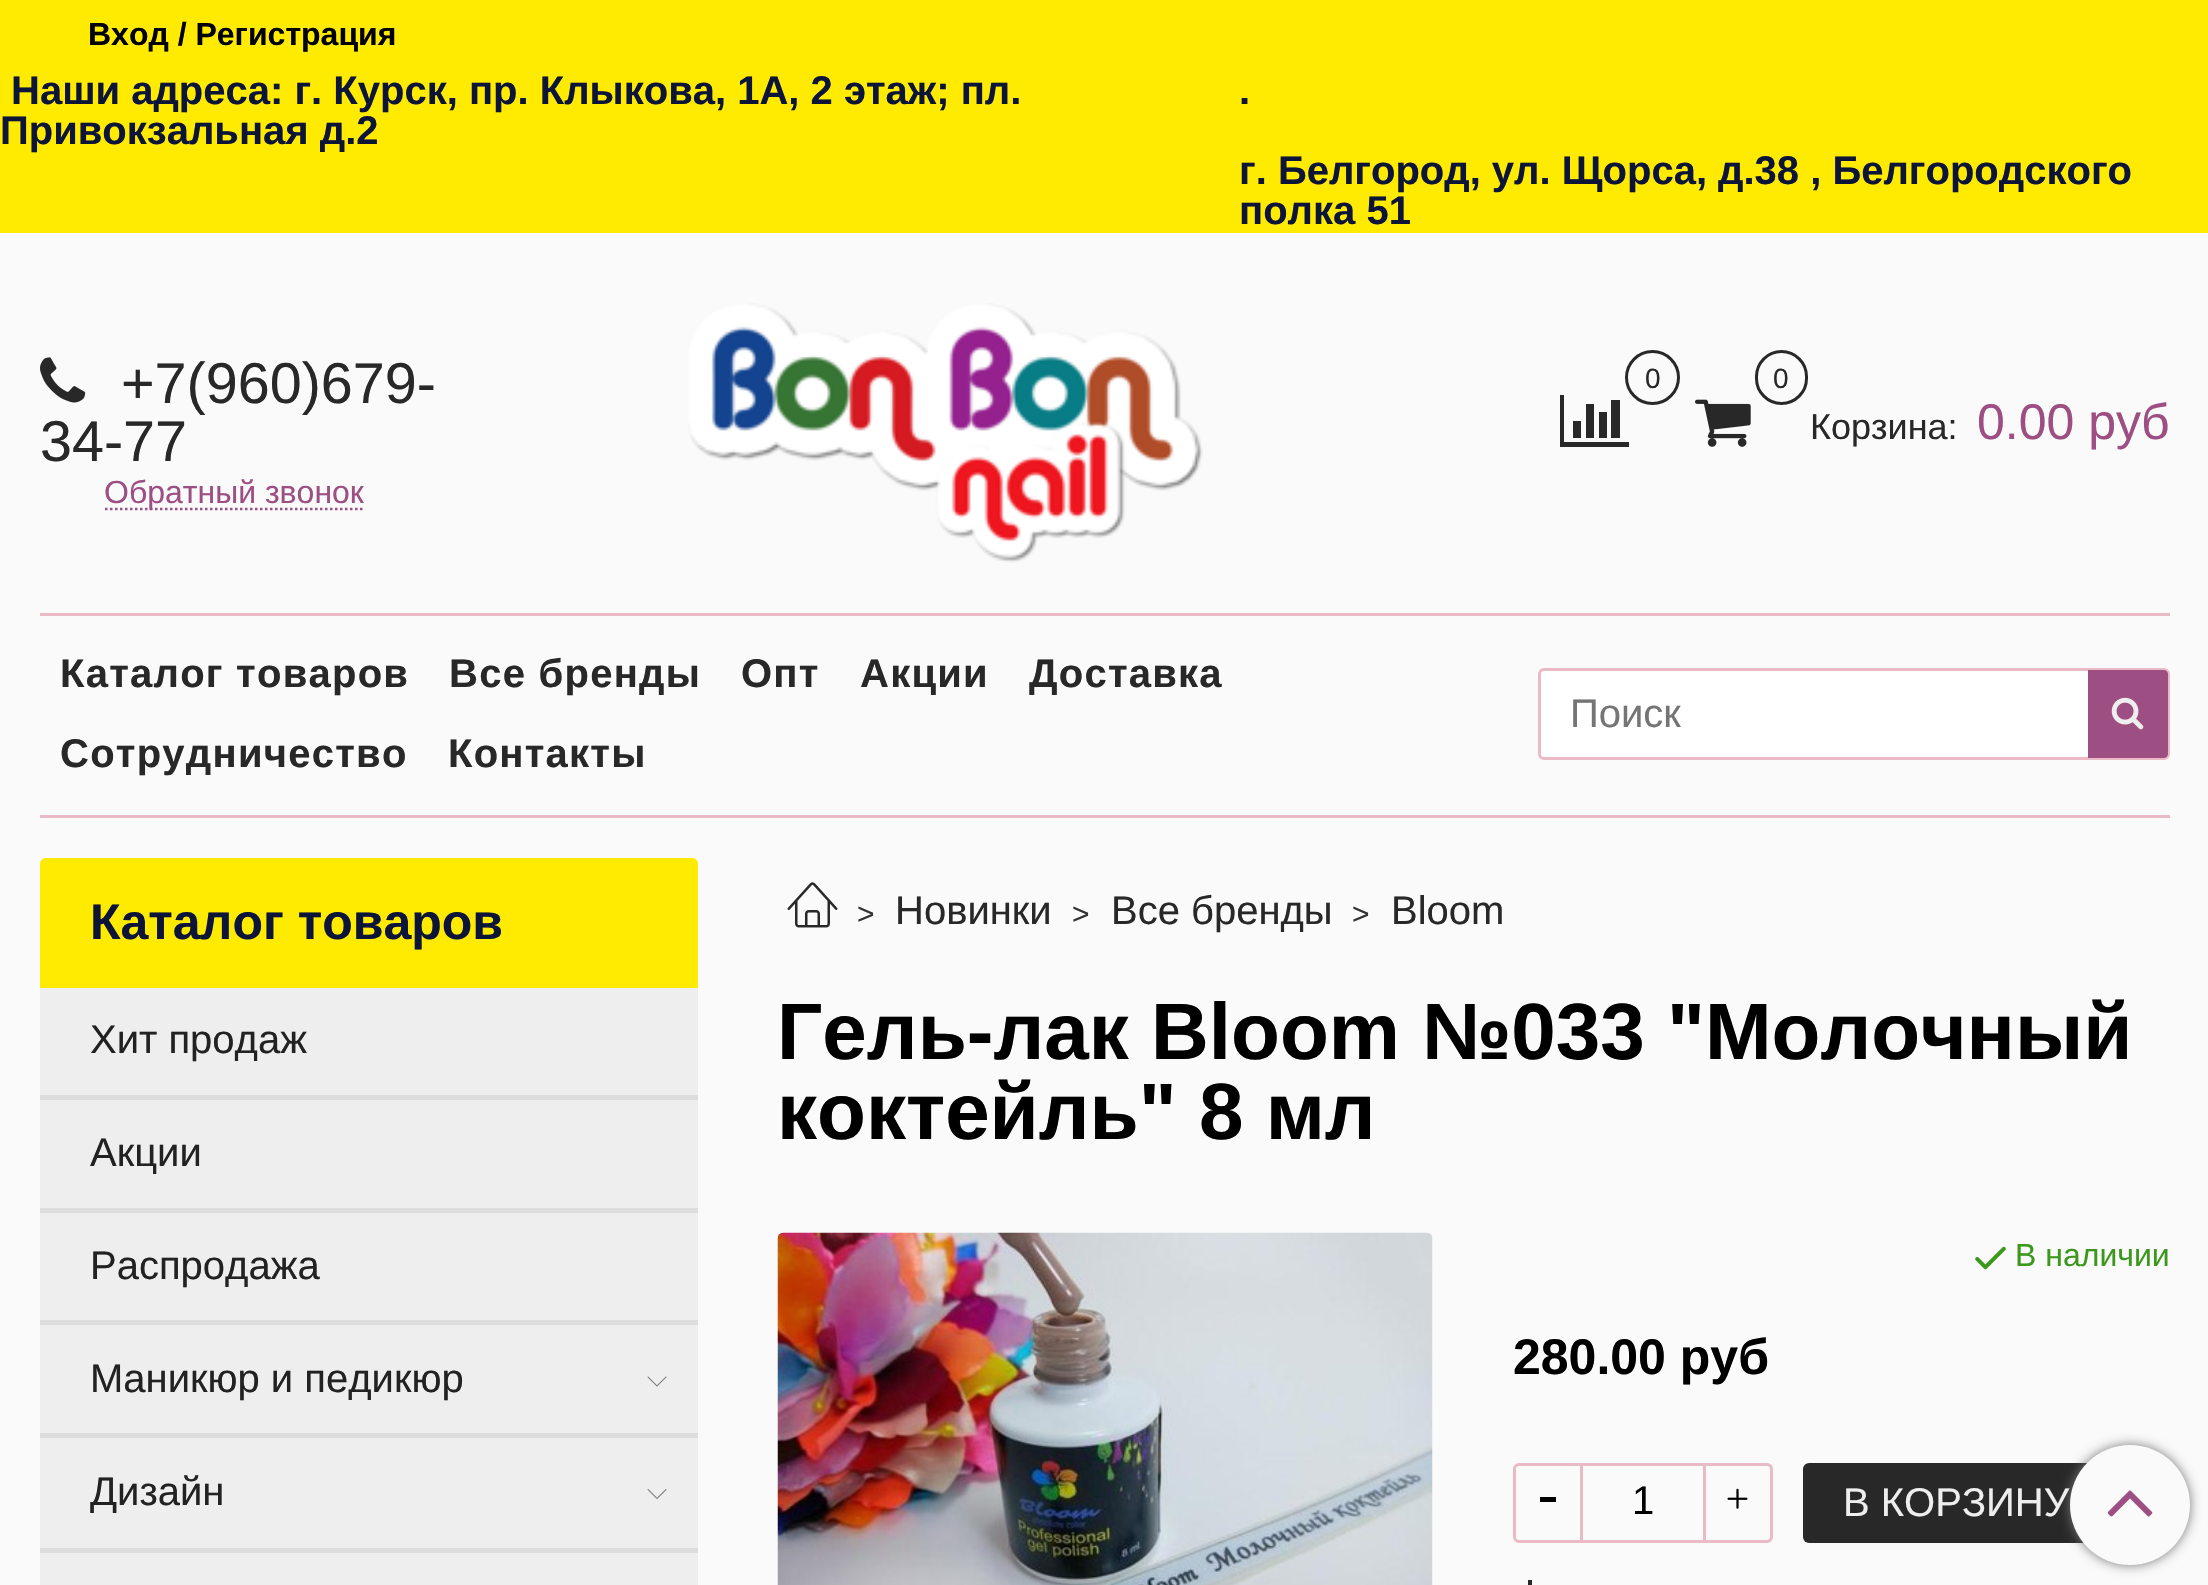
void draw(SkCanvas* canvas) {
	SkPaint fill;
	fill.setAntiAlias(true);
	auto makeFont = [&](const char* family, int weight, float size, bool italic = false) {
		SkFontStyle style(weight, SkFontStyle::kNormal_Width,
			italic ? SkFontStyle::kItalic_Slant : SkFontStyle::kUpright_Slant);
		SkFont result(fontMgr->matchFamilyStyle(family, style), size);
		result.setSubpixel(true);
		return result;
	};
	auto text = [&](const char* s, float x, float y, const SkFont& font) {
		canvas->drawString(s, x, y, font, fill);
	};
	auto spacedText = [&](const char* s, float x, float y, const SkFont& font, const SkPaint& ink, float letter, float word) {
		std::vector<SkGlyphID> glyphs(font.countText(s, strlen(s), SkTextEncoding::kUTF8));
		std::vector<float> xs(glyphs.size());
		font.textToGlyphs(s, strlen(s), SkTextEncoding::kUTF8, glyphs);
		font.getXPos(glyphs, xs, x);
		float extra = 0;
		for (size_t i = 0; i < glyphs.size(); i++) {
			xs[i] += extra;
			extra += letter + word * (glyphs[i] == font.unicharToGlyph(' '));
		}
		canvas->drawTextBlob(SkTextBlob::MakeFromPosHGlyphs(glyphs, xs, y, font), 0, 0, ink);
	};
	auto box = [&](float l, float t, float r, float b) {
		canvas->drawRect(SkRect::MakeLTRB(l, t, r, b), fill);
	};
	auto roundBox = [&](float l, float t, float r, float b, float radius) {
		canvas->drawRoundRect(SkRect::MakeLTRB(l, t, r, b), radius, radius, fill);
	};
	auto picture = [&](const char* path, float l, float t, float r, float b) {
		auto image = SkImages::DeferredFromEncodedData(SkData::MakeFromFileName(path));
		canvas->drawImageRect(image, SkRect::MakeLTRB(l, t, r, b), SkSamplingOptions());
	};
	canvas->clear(0xFFFAFAFA);
	fill.setColor(0xFFFFEB02);
	box(0, 0, 2208, 233);
	picture("image0.png", 40, 357, 86, 403);
	fill.setStyle(SkPaint::kStroke_Style);
	fill.setStrokeWidth(2.5f);
	fill.setColor(0xFF9D4E83);
	fill.setPathEffect(SkDashPathEffect::Make({{2.5f, 2.5f}}, 0));
	canvas->drawPath(SkPathBuilder().moveTo(105, 509).lineTo(365, 509).detach(), fill);
	fill.setPathEffect(nullptr);
	picture("image1.png", 688, 303, 1203, 563);
	fill.setStyle(SkPaint::kFill_Style);
	fill.setColor(0xFF282828);
	canvas->drawPath(SkPathBuilder().moveTo(1581, 421).lineTo(1581, 438).lineTo(1573, 438).lineTo(1573, 421).close().moveTo(1594, 404).lineTo(1594, 438).lineTo(1586, 438).lineTo(1586, 404).close().moveTo(1629, 442).lineTo(1629, 447).lineTo(1560, 447).lineTo(1560, 395).lineTo(1564, 395).lineTo(1564, 442).close().moveTo(1607, 412).lineTo(1607, 438).lineTo(1599, 438).lineTo(1599, 412).close().moveTo(1620, 400).lineTo(1620, 438).lineTo(1611, 438).lineTo(1611, 400).close().detach(), fill);
	fill.setStyle(SkPaint::kStroke_Style);
	fill.setStrokeWidth(3);
	canvas->drawCircle(1652.5f, 377.5f, 26, fill);
	canvas->drawRoundRect(SkRect::MakeLTRB(1756.5f, 351.5f, 1806.5f, 403.5f), 25, 25, fill);
	picture("image2.png", 1695, 399, 1751, 447);
	fill.setStyle(SkPaint::kFill_Style);
	fill.setColor(0xFFEBBAC7);
	box(40, 613, 2170, 616);
	box(40, 815, 2170, 818);
	fill.setColor(0xFFFFFFFF);
	canvas->drawRoundRect(SkRect::MakeLTRB(1539.5f, 669.5f, 2168.5f, 758.5f), 4.5f, 4.5f, fill);
	fill.setStyle(SkPaint::kStroke_Style);
	fill.setColor(0xFFEBBAC7);
	canvas->drawRoundRect(SkRect::MakeLTRB(1539.5f, 669.5f, 2168.5f, 758.5f), 4.5f, 4.5f, fill);
	fill.setStyle(SkPaint::kFill_Style);
	fill.setColor(0xFF9D4E83);
	canvas->drawPath(SkPathBuilder().moveTo(2088, 670).lineTo(2164, 670).cubicTo(2166, 670, 2168, 672, 2168, 674).lineTo(2168, 754).cubicTo(2168, 756, 2166, 758, 2164, 758).lineTo(2088, 758).close().detach(), fill);
	picture("image3.png", 2111, 697, 2144, 730);
	fill.setColor(0xFFFFEB02);
	canvas->drawPath(SkPathBuilder().moveTo(46, 858).lineTo(692, 858).cubicTo(695.5f, 858, 698, 860.5f, 698, 864).lineTo(698, 988).lineTo(40, 988).lineTo(40, 864).cubicTo(40, 860.5f, 42.5f, 858, 46, 858).close().detach(), fill);
	fill.setColor(0xFFEEEEEE);
	box(40, 988, 698, 1585);
	fill.setColor(0xFFDDDDDD);
	box(40, 1095, 698, 1100);
	box(40, 1208, 698, 1213);
	box(40, 1320, 698, 1325);
	box(40, 1433, 698, 1438);
	picture("image4.png", 647, 1376, 667, 1387);
	box(40, 1548, 698, 1553);
	picture("image5.png", 647, 1489, 667, 1499);
	picture("image6.png", 787, 882, 838, 928);
	picture("image7.png", 777, 1232, 1433, 1585);
	picture("image8.png", 1975, 1246, 2006, 1270);
	fill.setStyle(SkPaint::kStroke_Style);
	fill.setColor(0xFFEBBAC7);
	canvas->drawPath(SkPathBuilder().moveTo(1519, 1464.5f).lineTo(1581.5f, 1464.5f).lineTo(1581.5f, 1541.5f).lineTo(1519, 1541.5f).cubicTo(1516.5f, 1541.5f, 1514.5f, 1539.5f, 1514.5f, 1537).lineTo(1514.5f, 1469).cubicTo(1514.5f, 1466.5f, 1516.5f, 1464.5f, 1519, 1464.5f).close().detach(), fill);
	fill.setStyle(SkPaint::kFill_Style);
	fill.setColor(0xFF000000);
	box(1540, 1497, 1556, 1502);
	fill.setColor(0xFFEBBAC7);
	box(1583, 1463, 1703, 1466);
	box(1583, 1540, 1703, 1543);
	fill.setStyle(SkPaint::kStroke_Style);
	canvas->drawPath(SkPathBuilder().moveTo(1704.5f, 1464.5f).lineTo(1767, 1464.5f).cubicTo(1769.5f, 1464.5f, 1771.5f, 1466.5f, 1771.5f, 1469).lineTo(1771.5f, 1537).cubicTo(1771.5f, 1539.5f, 1769.5f, 1541.5f, 1767, 1541.5f).lineTo(1704.5f, 1541.5f).close().detach(), fill);
	picture("image9.png", 1727, 1488, 1748, 1509);
	fill.setStyle(SkPaint::kFill_Style);
	fill.setColor(0xFF282828);
	roundBox(1803, 1463, 2110, 1543, 6);
	canvas->drawPath(SkPathBuilder().moveTo(1549, 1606).lineTo(1549, 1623).lineTo(1540, 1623).lineTo(1540, 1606).close().moveTo(1562, 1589).lineTo(1562, 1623).lineTo(1553, 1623).lineTo(1553, 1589).close().moveTo(1596, 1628).lineTo(1596, 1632).lineTo(1528, 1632).lineTo(1528, 1580).lineTo(1532, 1580).lineTo(1532, 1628).close().moveTo(1575, 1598).lineTo(1575, 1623).lineTo(1566, 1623).lineTo(1566, 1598).close().moveTo(1588, 1585).lineTo(1588, 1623).lineTo(1579, 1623).lineTo(1579, 1585).close().detach(), fill);
	fill.setColor(0xFF777777);
	fill.setMaskFilter(SkMaskFilter::MakeBlur(kNormal_SkBlurStyle, 6));
	canvas->drawRoundRect(SkRect::MakeLTRB(2070, 1445, 2190, 1565), 60, 60, fill);
	fill.setMaskFilter(nullptr);
	fill.setColor(0xFFFAFAFA);
	canvas->drawCircle(2130, 1505, 60, fill);
	picture("image10.png", 2107, 1490, 2153, 1517);
	auto font1 = makeFont("Liberation Sans", 700, 32);
	fill.setColor(0xFF000000);
	text("Вход / Регистрация", 88, 45, font1);
	auto font2 = makeFont("Liberation Sans", 700, 40);
	fill.setColor(0xFF0C1538);
	text("Наши адреса: г. Курск, пр. Клыкова, 1А, 2 этаж; пл.", 11, 104, font2);
	text("Привокзальная д.2", 0, 144, font2);
	text(".", 1239, 104, font2);
	text("г. Белгород, ул. Щорса, д.38 , Белгородского", 1239, 184, font2);
	text("полка 51", 1239, 224, font2);
	auto font3 = makeFont("Liberation Sans", 400, 57.5f);
	fill.setColor(0xFF282828);
	text("+7(960)679-", 121, 403, font3);
	text("34-77", 40, 461, font3);
	auto font4 = makeFont("Liberation Sans", 400, 32);
	fill.setColor(0xFF9D4E83);
	text("Обратный звонок", 104, 503, font4);
	auto font5 = makeFont("Liberation Sans", 400, 28);
	fill.setColor(0xFF282828);
	text("0", 1645, 388, font5);
	text("0", 1773, 388, font5);
	auto font6 = makeFont("Liberation Sans", 400, 36);
	text("Корзина:", 1810, 439, font6);
	auto font7 = makeFont("Liberation Sans", 400, 50);
	fill.setColor(0xFF9D4E83);
	text("0.00 руб", 1977, 439, font7);
	fill.setColor(0xFF282828);
	spacedText("Каталог товаров", 60, 687, font2, fill, 1.25f, 0);
	spacedText("Все бренды", 449, 687, font2, fill, 1.25f, 0);
	spacedText("Опт", 741, 687, font2, fill, 1.25f, 0);
	spacedText("Акции", 860, 687, font2, fill, 1.25f, 0);
	spacedText("Доставка", 1029, 687, font2, fill, 1.25f, 0);
	spacedText("Сотрудничество", 60, 767, font2, fill, 1.25f, 0);
	spacedText("Контакты", 448, 767, font2, fill, 1.25f, 0);
	auto font8 = makeFont("Liberation Sans", 400, 40);
	fill.setColor(0xFF757575);
	text("Поиск", 1570, 727, font8);
	auto font9 = makeFont("Liberation Sans", 700, 50);
	fill.setColor(0xFF0C1538);
	text("Каталог товаров", 90, 939, font9);
	fill.setColor(0xFF222222);
	text("Хит продаж", 90, 1053, font8);
	text("Акции", 90, 1166, font8);
	text("Распродажа", 90, 1279, font8);
	text("Маникюр и педикюр", 90, 1392, font8);
	text("Дизайн", 90, 1505, font8);
	auto font10 = makeFont("Liberation Sans", 400, 30);
	fill.setColor(0xFF323232);
	text(">", 857, 924, font10);
	fill.setColor(0xFF282828);
	text("Новинки", 895, 924, font8);
	fill.setColor(0xFF323232);
	text(">", 1072, 924, font10);
	fill.setColor(0xFF282828);
	text("Все бренды", 1111, 924, font8);
	fill.setColor(0xFF323232);
	text(">", 1352, 924, font10);
	fill.setColor(0xFF282828);
	text("Bloom", 1391, 924, font8);
	auto font11 = makeFont("Liberation Sans", 700, 80);
	fill.setColor(0xFF000000);
	text("Гель-лак Bloom №033 \"Молочный", 777, 1059, font11);
	text("коктейль\" 8 мл", 777, 1139, font11);
	fill.setColor(0xFF3C981D);
	text("В наличии", 2015, 1266, font4);
	fill.setColor(0xFF000000);
	text("280.00 руб", 1513, 1374, font9);
	text("1", 1632, 1514, font8);
	fill.setColor(0xFFEEEEEE);
	text("В КОРЗИНУ", 1843, 1516, font8);
}
